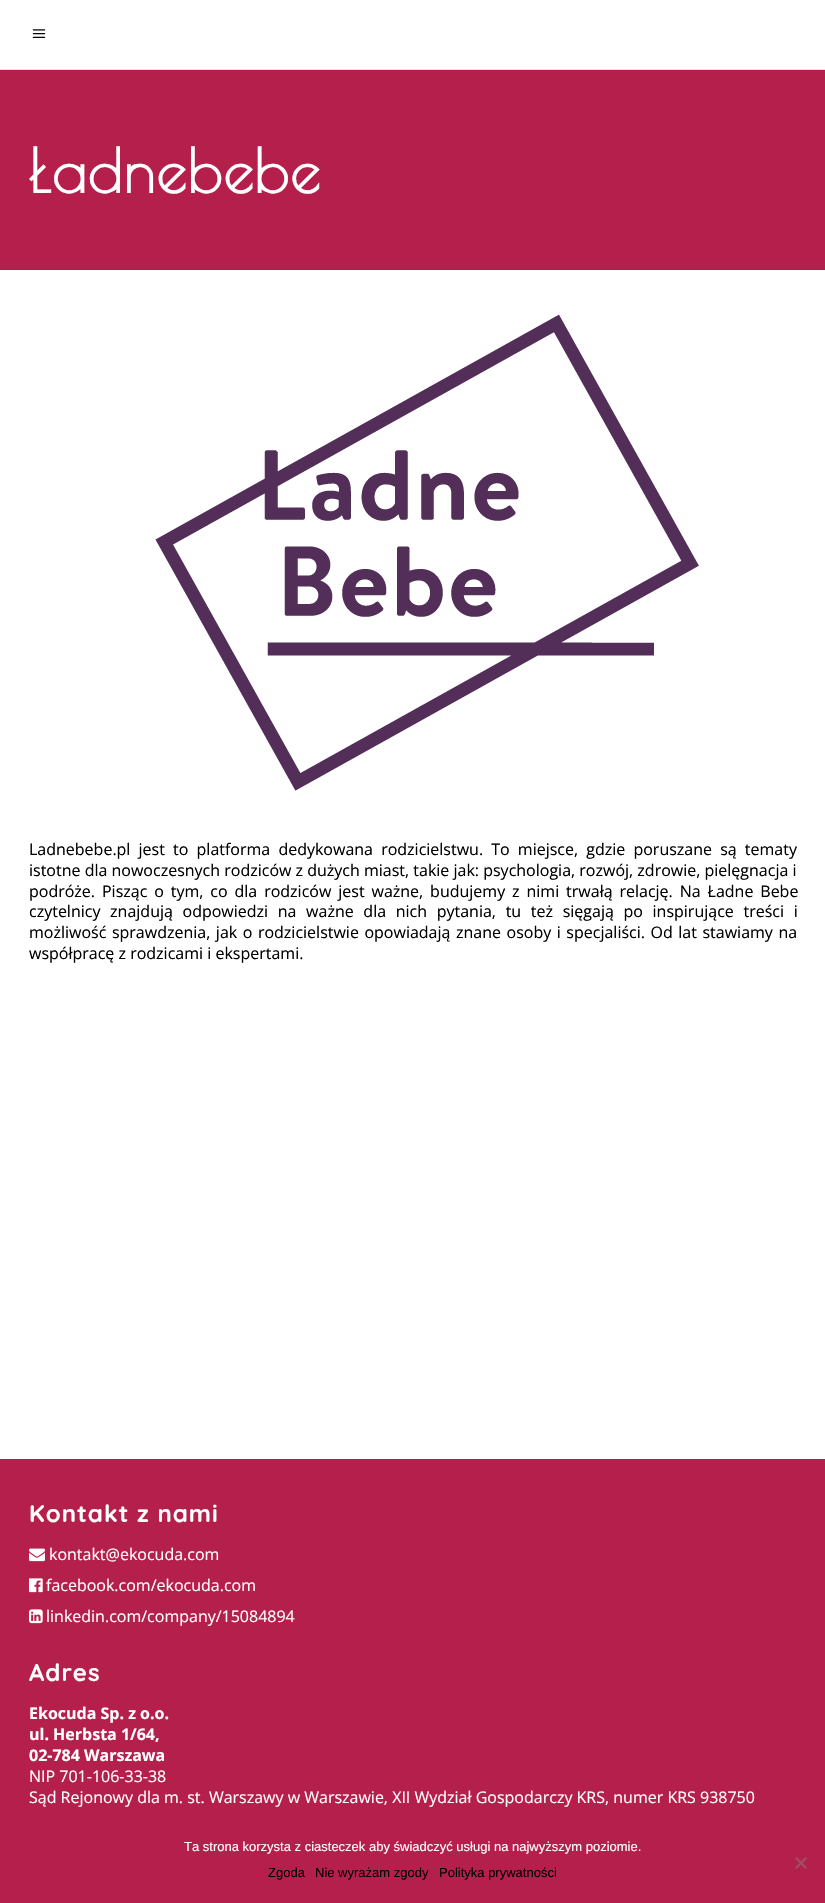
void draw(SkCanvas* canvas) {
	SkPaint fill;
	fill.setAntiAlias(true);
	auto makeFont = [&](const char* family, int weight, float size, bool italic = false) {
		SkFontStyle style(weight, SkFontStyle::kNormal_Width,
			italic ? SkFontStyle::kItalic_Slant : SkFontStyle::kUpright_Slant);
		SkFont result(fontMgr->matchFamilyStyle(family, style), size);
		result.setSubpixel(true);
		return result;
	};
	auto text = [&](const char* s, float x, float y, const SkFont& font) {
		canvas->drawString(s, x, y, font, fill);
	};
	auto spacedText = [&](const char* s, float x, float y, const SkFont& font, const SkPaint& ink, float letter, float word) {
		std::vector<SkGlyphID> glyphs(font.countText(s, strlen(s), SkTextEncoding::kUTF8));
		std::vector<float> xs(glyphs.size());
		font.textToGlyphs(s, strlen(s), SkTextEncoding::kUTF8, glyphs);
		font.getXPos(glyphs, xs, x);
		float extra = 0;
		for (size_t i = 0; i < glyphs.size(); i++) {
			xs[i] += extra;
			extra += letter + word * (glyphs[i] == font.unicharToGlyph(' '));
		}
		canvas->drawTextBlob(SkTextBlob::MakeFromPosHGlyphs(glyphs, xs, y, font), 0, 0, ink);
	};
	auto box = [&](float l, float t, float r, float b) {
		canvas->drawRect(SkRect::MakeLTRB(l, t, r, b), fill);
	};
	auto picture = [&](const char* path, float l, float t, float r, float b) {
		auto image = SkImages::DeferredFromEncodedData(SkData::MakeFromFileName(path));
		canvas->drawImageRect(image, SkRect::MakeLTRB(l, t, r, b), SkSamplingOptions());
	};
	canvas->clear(0xFFFFFFFF);
	fill.setColor(0xFFE1E1E1);
	box(0, 69, 825, 70);
	picture("image0.png", 32, 29, 46, 38);
	fill.setColor(0xFFB51F4C);
	box(0, 70, 825, 270);
	picture("image1.png", 155, 314, 699, 791);
	box(0, 1459, 825, 1903);
	picture("image2.png", 29, 1548, 45, 1562);
	picture("image3.png", 29, 1578, 43, 1593);
	picture("image4.png", 29, 1609, 43, 1624);
	fill.setColor(0xFF9B5066);
	canvas->drawPath(SkPathBuilder().moveTo(805.5f, 1857).lineTo(807, 1858.5f).lineTo(796.5f, 1869).lineTo(795, 1867.5f).close().detach(), fill);
	canvas->drawPath(SkPathBuilder().moveTo(795, 1858.5f).lineTo(796.5f, 1857).lineTo(807, 1867.5f).lineTo(805.5f, 1869).close().detach(), fill);
	auto font1 = makeFont("Poiret One", 700, 60);
	fill.setColor(0xFFFFFFFF);
	spacedText("Ładnebebe", 29, 193, font1, fill, 1.5f, 0);
	auto font2 = makeFont("Open Sans", 400, 16);
	fill.setColor(0xFF000000);
	spacedText("Ladnebebe.pl jest to platforma dedykowana rodzicielstwu. To miejsce, gdzie poruszane są tematy", 29, 855, font2, fill, 0, 4);
	text("istotne dla nowoczesnych rodziców z dużych miast, takie jak: psychologia, rozwój, zdrowie, pielęgnacja i", 29, 876, font2);
	spacedText("podróże. Pisząc o tym, co dla rodziców jest ważne, budujemy z nimi trwałą relację. Na Ładne Bebe", 29, 897, font2, fill, 0, 2.75f);
	spacedText("czytelnicy znajdują odpowiedzi na ważne dla nich pytania, tu też sięgają po inspirujące treści i", 29, 917, font2, fill, 0, 5.5f);
	spacedText("możliwość sprawdzenia, jak o rodzicielstwie opowiadają znane osoby i specjaliści. Od lat stawiamy na", 29, 938, font2, fill, 0, 1.4f);
	text("współpracę z rodzicami i ekspertami.", 29, 959, font2);
	auto font3 = makeFont("Quicksand", 700, 24);
	fill.setColor(0xFFFFFFFF);
	spacedText("Kontakt z nami", 29, 1522, font3, fill, 1, 0);
	text("kontakt@ekocuda.com", 49, 1560, font2);
	text("facebook.com/ekocuda.com", 46, 1591, font2);
	text("linkedin.com/company/15084894", 46, 1622, font2);
	spacedText("Adres", 29, 1681, font3, fill, 1, 0);
	auto font4 = makeFont("Open Sans", 700, 16);
	text("Ekocuda Sp. z o.o.", 29, 1719, font4);
	text("ul. Herbsta 1/64,", 29, 1740, font4);
	text("02-784 Warszawa", 29, 1761, font4);
	text("NIP 701-106-33-38", 29, 1782, font2);
	text("Sąd Rejonowy dla m. st. Warszawy w Warszawie, XII Wydział Gospodarczy KRS, numer KRS 938750", 29, 1803, font2);
	auto font5 = makeFont("Liberation Sans", 400, 13);
	text("Ta strona korzysta z ciasteczek aby świadczyć usługi na najwyższym poziomie.", 184, 1851, font5);
	fill.setColor(0xFF000000);
	text("Zgoda", 268, 1877, font5);
	text("Nie wyrażam zgody", 315, 1877, font5);
	text("Polityka prywatności", 439, 1877, font5);
}
